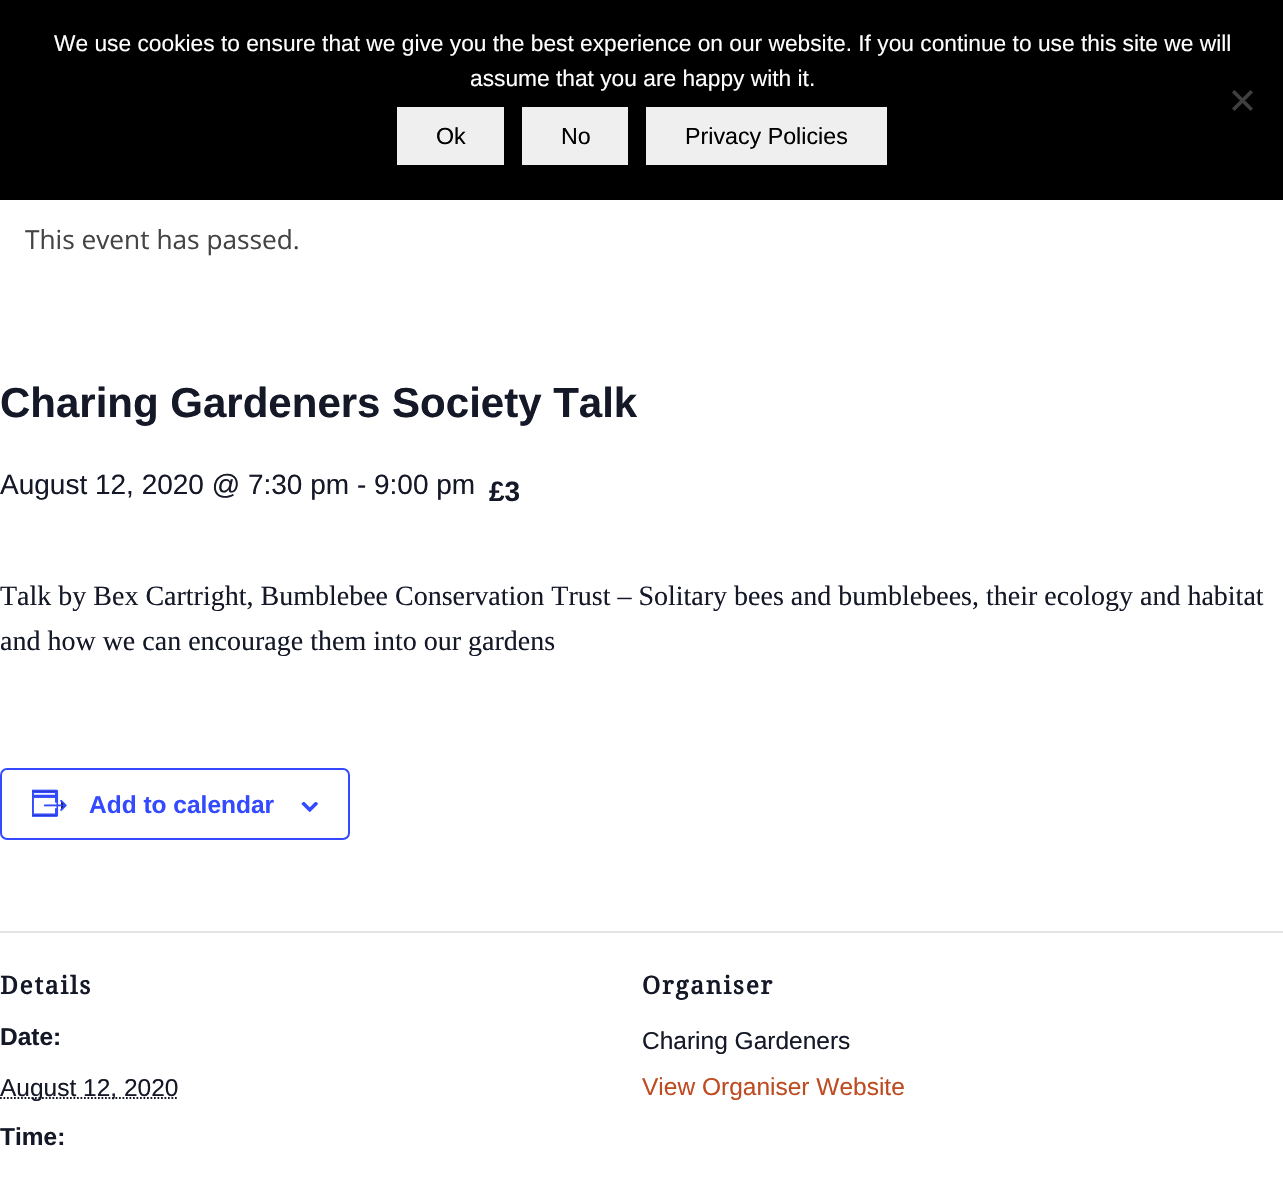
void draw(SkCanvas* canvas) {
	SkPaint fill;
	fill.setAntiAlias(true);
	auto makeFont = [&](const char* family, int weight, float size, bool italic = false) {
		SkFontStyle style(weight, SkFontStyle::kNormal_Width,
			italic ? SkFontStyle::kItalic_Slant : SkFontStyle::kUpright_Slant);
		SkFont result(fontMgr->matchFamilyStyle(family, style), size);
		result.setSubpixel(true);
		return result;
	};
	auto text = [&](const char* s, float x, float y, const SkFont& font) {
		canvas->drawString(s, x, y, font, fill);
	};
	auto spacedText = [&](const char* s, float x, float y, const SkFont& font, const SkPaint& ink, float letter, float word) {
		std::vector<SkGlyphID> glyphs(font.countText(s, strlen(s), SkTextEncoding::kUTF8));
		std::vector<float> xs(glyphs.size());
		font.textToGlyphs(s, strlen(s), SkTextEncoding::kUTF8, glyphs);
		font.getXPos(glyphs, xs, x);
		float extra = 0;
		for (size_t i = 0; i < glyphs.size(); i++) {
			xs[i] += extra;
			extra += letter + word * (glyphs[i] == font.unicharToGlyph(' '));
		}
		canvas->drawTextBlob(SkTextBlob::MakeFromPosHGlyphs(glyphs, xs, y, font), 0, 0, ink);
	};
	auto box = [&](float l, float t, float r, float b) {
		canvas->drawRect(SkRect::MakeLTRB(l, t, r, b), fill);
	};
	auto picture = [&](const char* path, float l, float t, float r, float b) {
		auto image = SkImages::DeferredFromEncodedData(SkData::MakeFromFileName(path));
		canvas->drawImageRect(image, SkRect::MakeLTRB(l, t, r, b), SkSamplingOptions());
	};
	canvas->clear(0xFFFFFFFF);
	fill.setColor(0xFF000000);
	box(0, 0, 1283, 200);
	fill.setColor(0xFF404040);
	canvas->drawPath(SkPathBuilder().moveTo(1250.5f, 90).lineTo(1253, 92.5f).lineTo(1234.5f, 111).lineTo(1232, 108.5f).close().detach(), fill);
	canvas->drawPath(SkPathBuilder().moveTo(1232, 92.5f).lineTo(1234.5f, 90).lineTo(1253, 108.5f).lineTo(1250.5f, 111).close().detach(), fill);
	fill.setColor(0xFFEFEFEF);
	box(397, 107, 504, 165);
	box(522, 107, 628, 165);
	box(646, 107, 887, 165);
	fill.setStyle(SkPaint::kStroke_Style);
	fill.setStrokeWidth(2);
	fill.setColor(0xFF334AFF);
	canvas->drawRoundRect(SkRect::MakeLTRB(1, 769, 349, 839), 6, 6, fill);
	picture("image0.png", 32, 789, 67, 817);
	picture("image1.png", 301, 802, 319, 812);
	fill.setStyle(SkPaint::kFill_Style);
	fill.setColor(0xFFE4E4E4);
	box(0, 931, 1283, 933);
	fill.setStyle(SkPaint::kStroke_Style);
	fill.setStrokeWidth(1.8f);
	fill.setColor(0xFF141827);
	fill.setPathEffect(SkDashPathEffect::Make({{1.75f, 1.75f}}, 0));
	canvas->drawPath(SkPathBuilder().moveTo(0, 1098).lineTo(178.5f, 1098).detach(), fill);
	fill.setPathEffect(nullptr);
	auto font1 = makeFont("Liberation Sans", 400, 22.75f);
	fill.setStyle(SkPaint::kFill_Style);
	fill.setColor(0xFFFFFFFF);
	text("We use cookies to ensure that we give you the best experience on our website. If you continue to use this site we will", 54, 51, font1);
	text("assume that you are happy with it.", 470, 86, font1);
	auto font2 = makeFont("Liberation Sans", 400, 23.25f);
	fill.setColor(0xFF000000);
	text("Ok", 436, 144, font2);
	text("No", 561, 144, font2);
	text("Privacy Policies", 685, 144, font2);
	auto font3 = makeFont("Open Sans", 400, 26.25f);
	fill.setColor(0xFF444444);
	text("This event has passed.", 25, 249, font3);
	auto font4 = makeFont("Liberation Sans", 700, 42);
	fill.setColor(0xFF141827);
	text("Charing Gardeners Society Talk", 0, 417, font4);
	auto font5 = makeFont("Liberation Sans", 400, 28);
	text("August 12, 2020 @ 7:30 pm - 9:00 pm", 0, 494, font5);
	auto font6 = makeFont("Liberation Sans", 700, 28);
	text("£3", 489, 501, font6);
	auto font7 = makeFont("Liberation Serif", 400, 28);
	text("Talk by Bex Cartright, Bumblebee Conservation Trust – Solitary bees and bumblebees, their ecology and habitat", 0, 605, font7);
	text("and how we can encourage them into our gardens", 0, 650, font7);
	auto font8 = makeFont("Liberation Sans", 700, 24.5f);
	fill.setColor(0xFF334AFF);
	text("Add to calendar", 89, 813, font8);
	auto font9 = makeFont("Droid Serif", 700, 24.5f);
	fill.setColor(0xFF141827);
	spacedText("Details", 0, 994, font9, fill, 1.75f, 0);
	text("Date:", 0, 1045, font8);
	auto font10 = makeFont("Liberation Sans", 400, 24.5f);
	text("August 12, 2020", 0, 1096, font10);
	text("Time:", 0, 1145, font8);
	spacedText("Organiser", 642, 994, font9, fill, 1.75f, 0);
	text("Charing Gardeners", 642, 1049, font10);
	fill.setColor(0xFFBE4C22);
	text("View Organiser Website", 642, 1095, font10);
}
